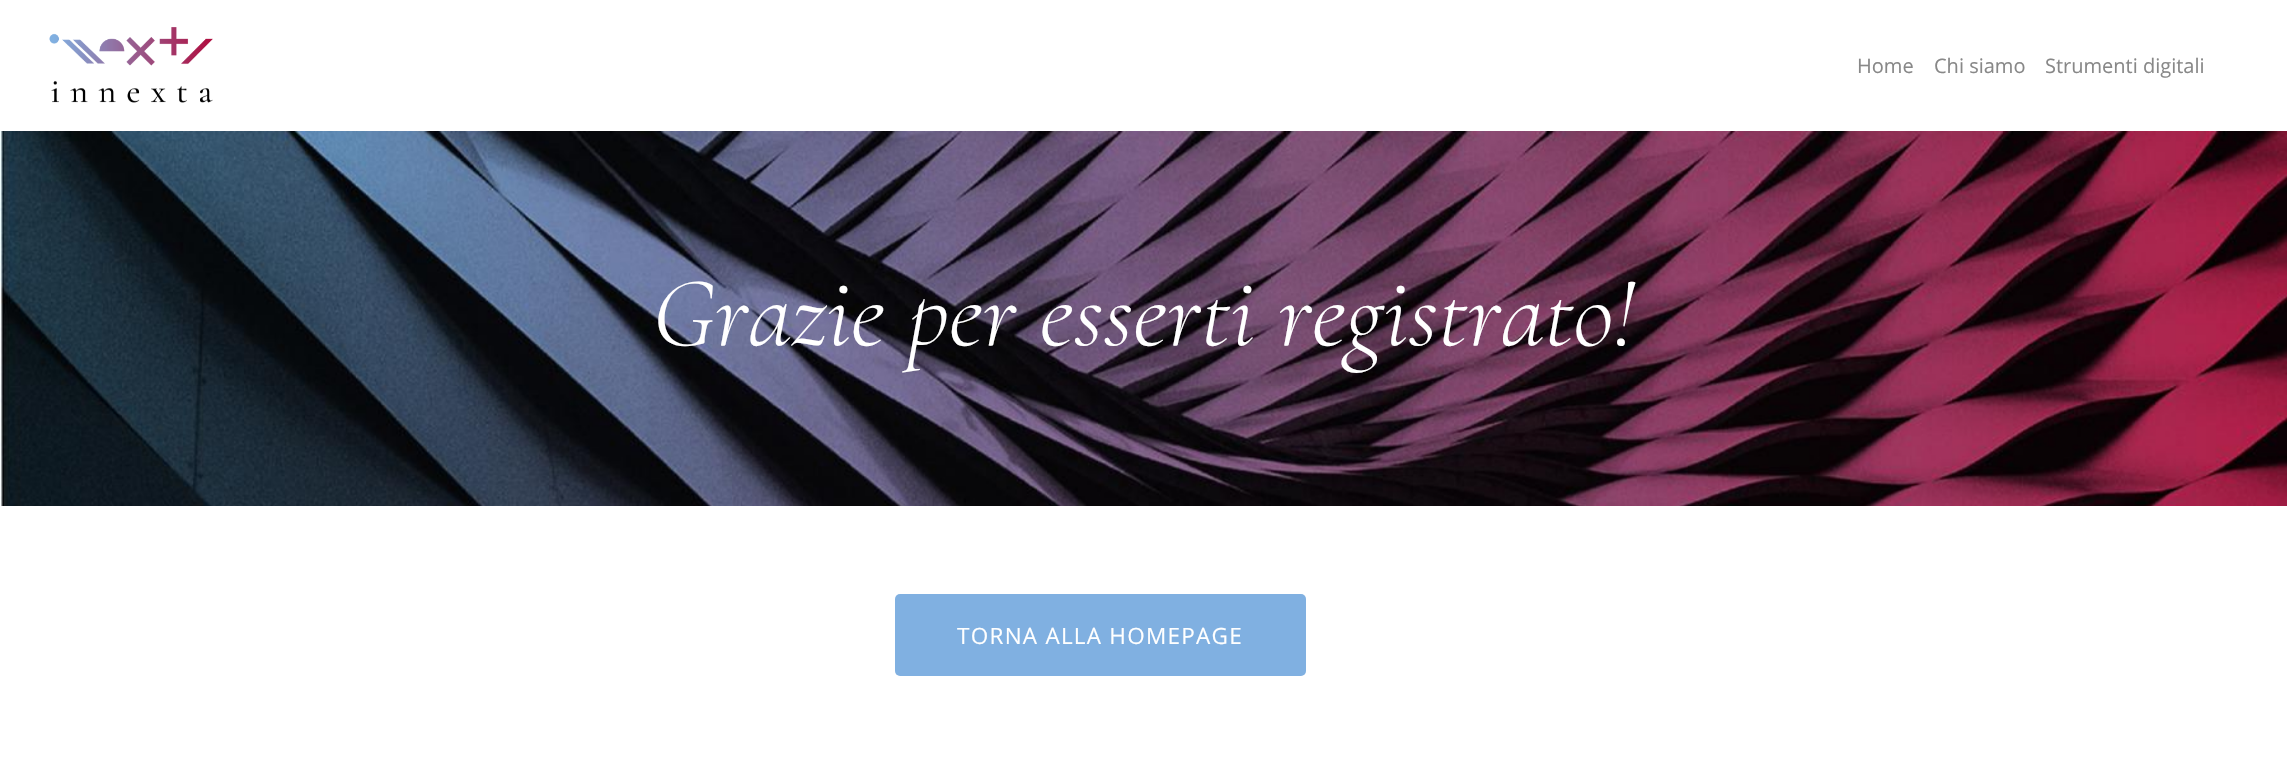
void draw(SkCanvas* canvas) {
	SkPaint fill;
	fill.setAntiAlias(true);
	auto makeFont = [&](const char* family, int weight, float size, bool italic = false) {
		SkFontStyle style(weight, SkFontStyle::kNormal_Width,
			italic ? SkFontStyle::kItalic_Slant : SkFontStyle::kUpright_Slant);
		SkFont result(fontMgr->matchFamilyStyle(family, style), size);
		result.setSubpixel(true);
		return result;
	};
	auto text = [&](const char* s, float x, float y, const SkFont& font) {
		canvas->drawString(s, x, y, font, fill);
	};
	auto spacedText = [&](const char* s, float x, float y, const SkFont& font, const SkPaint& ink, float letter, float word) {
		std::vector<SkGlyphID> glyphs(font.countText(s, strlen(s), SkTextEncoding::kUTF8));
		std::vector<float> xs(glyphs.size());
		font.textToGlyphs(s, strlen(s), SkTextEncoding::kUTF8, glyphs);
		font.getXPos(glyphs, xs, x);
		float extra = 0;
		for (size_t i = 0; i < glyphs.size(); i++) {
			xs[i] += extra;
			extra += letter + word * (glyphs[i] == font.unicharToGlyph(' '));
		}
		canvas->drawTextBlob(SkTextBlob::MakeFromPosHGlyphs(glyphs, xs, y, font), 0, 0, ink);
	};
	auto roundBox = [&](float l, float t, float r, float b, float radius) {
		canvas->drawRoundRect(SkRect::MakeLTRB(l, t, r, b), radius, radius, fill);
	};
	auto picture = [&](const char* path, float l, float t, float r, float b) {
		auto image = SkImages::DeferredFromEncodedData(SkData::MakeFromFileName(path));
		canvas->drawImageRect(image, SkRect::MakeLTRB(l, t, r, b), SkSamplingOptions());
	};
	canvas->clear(0xFFFFFFFF);
	picture("image0.png", 49, 27, 213, 103);
	picture("image1.png", 0, 131, 2287, 506);
	fill.setColor(0xFF80B0E1);
	roundBox(895, 594, 1306, 676, 5);
	auto font1 = makeFont("Open Sans", 400, 20);
	fill.setColor(0xFF888888);
	text("Home", 1857, 73, font1);
	text("Chi siamo", 1934, 73, font1);
	text("Strumenti digitali", 2045, 73, font1);
	auto font2 = makeFont("Cormorant Garamond", 300, 100, true);
	fill.setColor(0xFFFFFFFF);
	text("Grazie per esserti registrato!", 652, 345, font2);
	auto font3 = makeFont("Open Sans", 400, 22.5f);
	spacedText("TORNA ALLA HOMEPAGE", 957, 644, font3, fill, 1.25f, 0);
}
